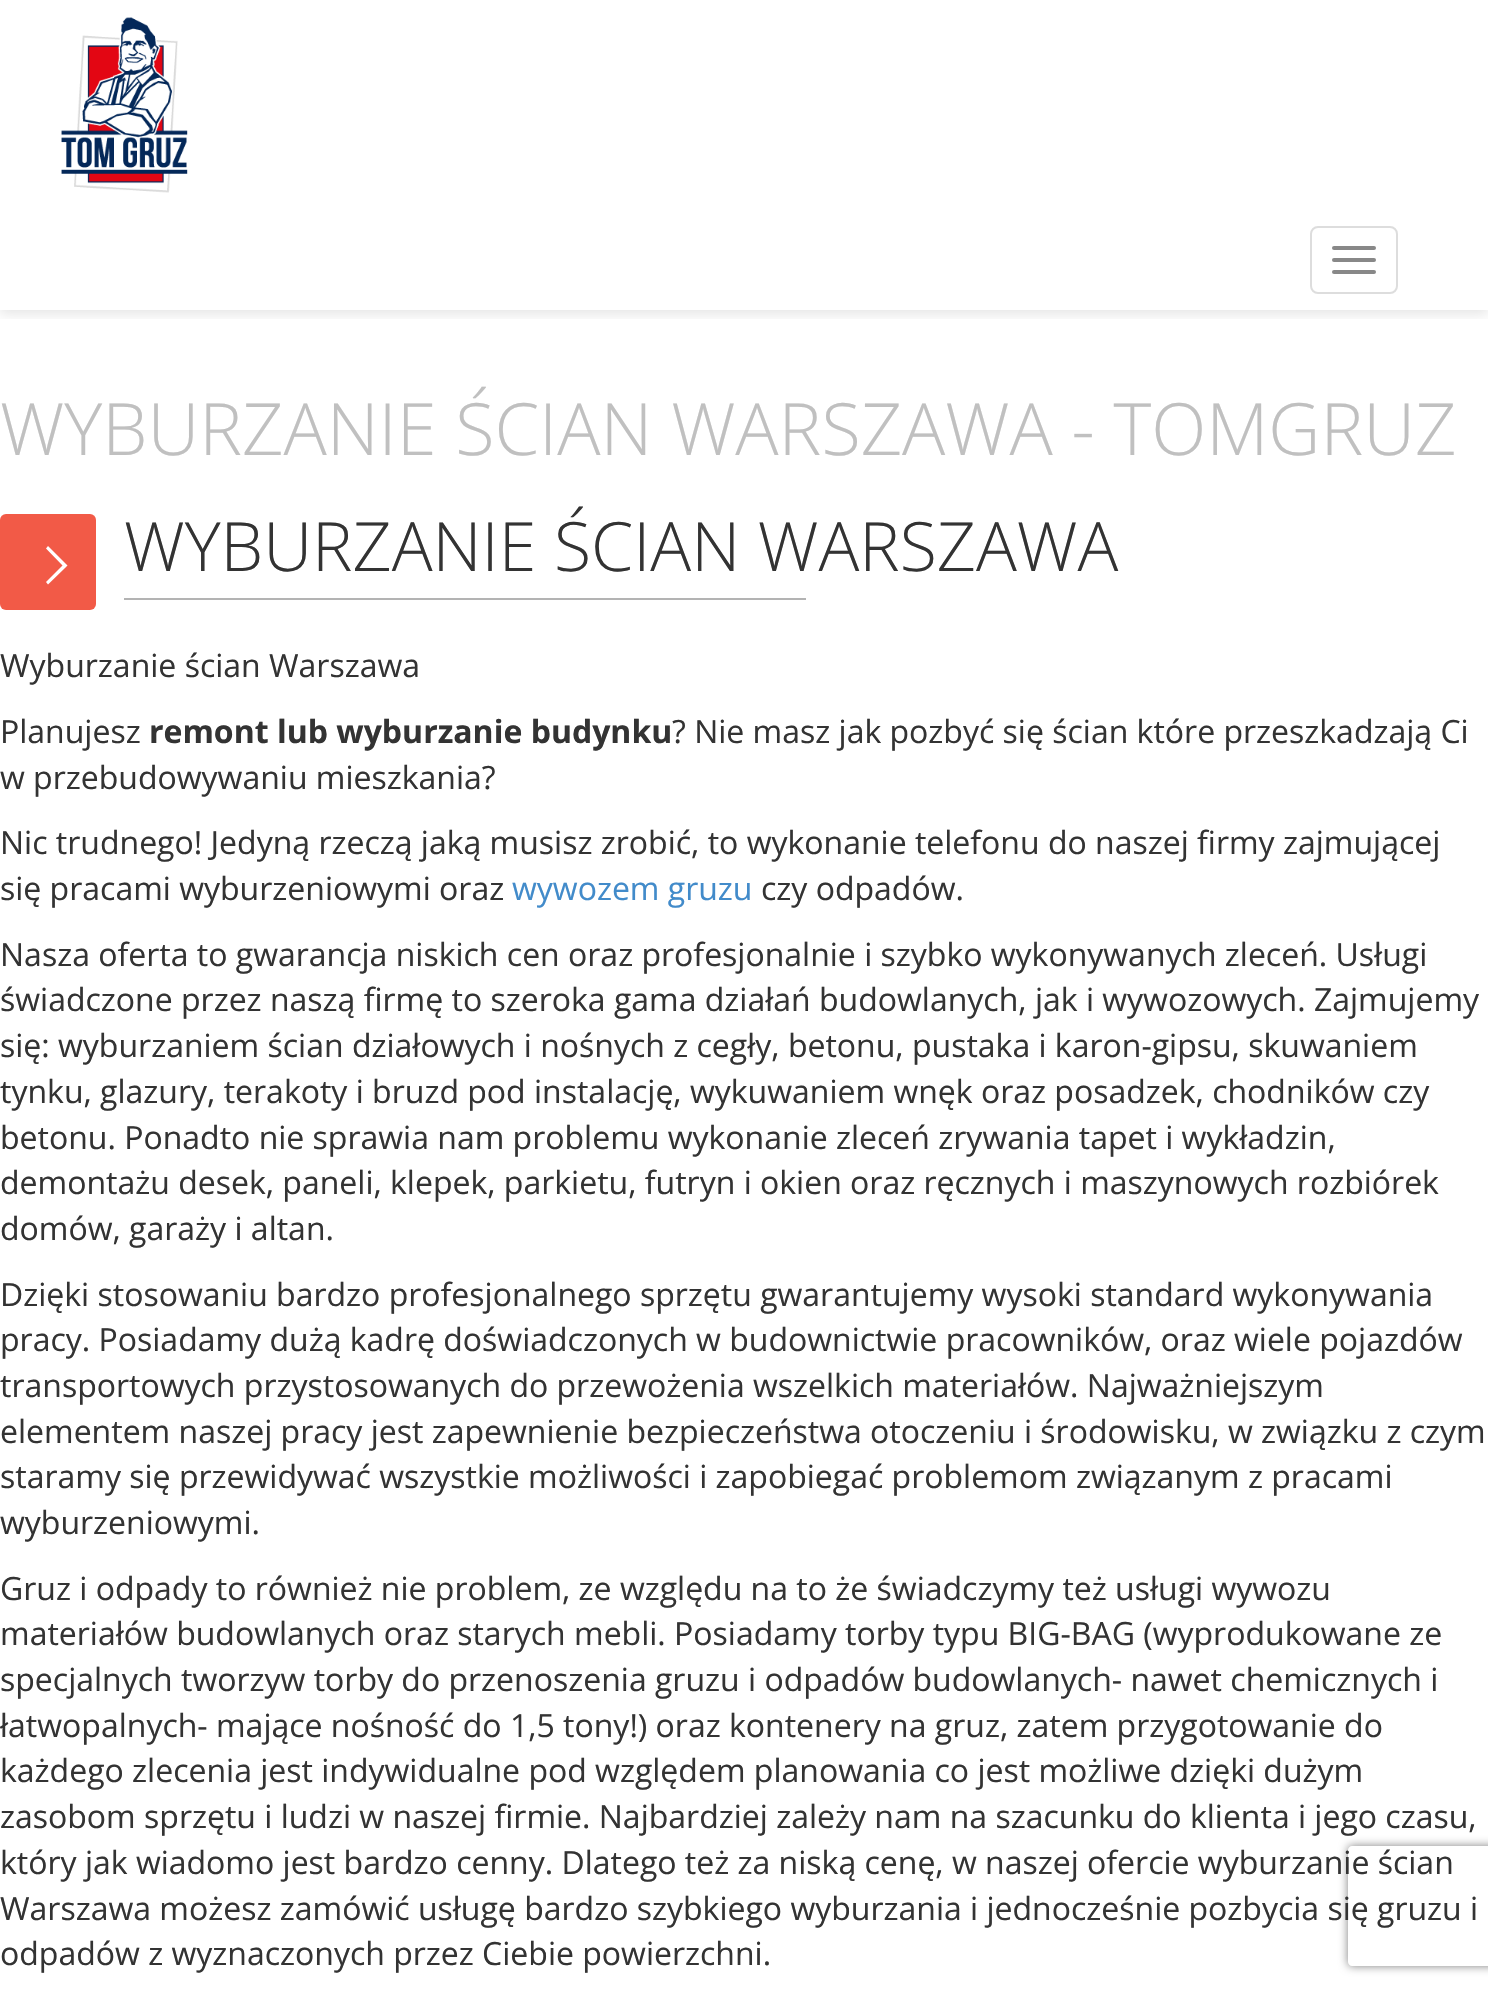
void draw(SkCanvas* canvas) {
	SkPaint fill;
	fill.setAntiAlias(true);
	auto makeFont = [&](const char* family, int weight, float size, bool italic = false) {
		SkFontStyle style(weight, SkFontStyle::kNormal_Width,
			italic ? SkFontStyle::kItalic_Slant : SkFontStyle::kUpright_Slant);
		SkFont result(fontMgr->matchFamilyStyle(family, style), size);
		result.setSubpixel(true);
		return result;
	};
	auto text = [&](const char* s, float x, float y, const SkFont& font) {
		canvas->drawString(s, x, y, font, fill);
	};
	auto box = [&](float l, float t, float r, float b) {
		canvas->drawRect(SkRect::MakeLTRB(l, t, r, b), fill);
	};
	auto roundBox = [&](float l, float t, float r, float b, float radius) {
		canvas->drawRoundRect(SkRect::MakeLTRB(l, t, r, b), radius, radius, fill);
	};
	auto picture = [&](const char* path, float l, float t, float r, float b) {
		auto image = SkImages::DeferredFromEncodedData(SkData::MakeFromFileName(path));
		canvas->drawImageRect(image, SkRect::MakeLTRB(l, t, r, b), SkSamplingOptions());
	};
	canvas->clear(0xFFFFFFFF);
	canvas->save();
	canvas->clipRect(SkRect::MakeLTRB(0, 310, 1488, 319));
	fill.setColor(0x1A000000);
	fill.setMaskFilter(SkMaskFilter::MakeBlur(kNormal_SkBlurStyle, 6));
	canvas->drawRect(SkRect::MakeLTRB(0, 4, 1488, 314), fill);
	fill.setMaskFilter(nullptr);
	canvas->restore();
	picture("image0.png", 61, 17, 188, 193);
	fill.setStyle(SkPaint::kStroke_Style);
	fill.setStrokeWidth(2);
	fill.setColor(0xFFDDDDDD);
	canvas->drawRoundRect(SkRect::MakeLTRB(1311, 227, 1397, 293), 7, 7, fill);
	fill.setStyle(SkPaint::kFill_Style);
	fill.setColor(0xFF888888);
	roundBox(1332, 246, 1376, 250, 2);
	roundBox(1332, 258, 1376, 262, 2);
	roundBox(1332, 270, 1376, 274, 2);
	fill.setColor(0xFFF25A47);
	roundBox(0, 514, 96, 610, 6);
	fill.setColor(0xFFFFFFFF);
	canvas->drawPath(SkPathBuilder().moveTo(65, 568).lineTo(67.5f, 565.5f).lineTo(48, 546).lineTo(46, 548.5f).lineTo(62.5f, 565.5f).lineTo(46, 582).lineTo(48, 584.5f).close().detach(), fill);
	fill.setColor(0xFFB3B3B3);
	box(124, 598, 806, 600);
	canvas->save();
	canvas->clipPath(SkPathBuilder(SkPathFillType::kEvenOdd).moveTo(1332, 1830).lineTo(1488, 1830).lineTo(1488, 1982).lineTo(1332, 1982).close().moveTo(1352, 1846).lineTo(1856, 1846).cubicTo(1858, 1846, 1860, 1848, 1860, 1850).lineTo(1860, 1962).cubicTo(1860, 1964, 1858, 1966, 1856, 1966).lineTo(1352, 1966).cubicTo(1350, 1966, 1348, 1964, 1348, 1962).lineTo(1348, 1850).cubicTo(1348, 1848, 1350, 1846, 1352, 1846).close().detach(), true);
	fill.setColor(0xFF808080);
	fill.setMaskFilter(SkMaskFilter::MakeBlur(kNormal_SkBlurStyle, 5));
	canvas->drawRoundRect(SkRect::MakeLTRB(1348, 1846, 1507, 1966), 4, 4, fill);
	fill.setMaskFilter(nullptr);
	canvas->restore();
	auto font1 = makeFont("Open Sans", 300, 72);
	fill.setColor(0xFFC0C0C0);
	text("WYBURZANIE ŚCIAN WARSZAWA - TOMGRUZ", 0, 455, font1);
	auto font2 = makeFont("Open Sans", 300, 68);
	fill.setColor(0xFF333333);
	text("WYBURZANIE ŚCIAN WARSZAWA", 124, 571, font2);
	auto font3 = makeFont("Open Sans", 400, 32);
	text("Wyburzanie ścian Warszawa", 0, 677, font3);
	text("Planujesz", 0, 743, font3);
	auto font4 = makeFont("Open Sans", 700, 32);
	text("remont lub wyburzanie budynku", 149, 743, font4);
	text("? Nie masz jak pozbyć się ścian które przeszkadzają Ci", 672, 743, font3);
	text("w przebudowywaniu mieszkania?", 0, 789, font3);
	text("Nic trudnego! Jedyną rzeczą jaką musisz zrobić, to wykonanie telefonu do naszej firmy zajmującej", 0, 854, font3);
	text("się pracami wyburzeniowymi oraz", 0, 900, font3);
	fill.setColor(0xFF428BCA);
	text("wywozem gruzu", 512, 900, font3);
	fill.setColor(0xFF333333);
	text("czy odpadów.", 761, 900, font3);
	text("Nasza oferta to gwarancja niskich cen oraz profesjonalnie i szybko wykonywanych zleceń. Usługi", 0, 966, font3);
	text("świadczone przez naszą firmę to szeroka gama działań budowlanych, jak i wywozowych. Zajmujemy", 0, 1011, font3);
	text("się: wyburzaniem ścian działowych i nośnych z cegły, betonu, pustaka i karon-gipsu, skuwaniem", 0, 1057, font3);
	text("tynku, glazury, terakoty i bruzd pod instalację, wykuwaniem wnęk oraz posadzek, chodników czy", 0, 1103, font3);
	text("betonu. Ponadto nie sprawia nam problemu wykonanie zleceń zrywania tapet i wykładzin,", 0, 1149, font3);
	text("demontażu desek, paneli, klepek, parkietu, futryn i okien oraz ręcznych i maszynowych rozbiórek", 0, 1194, font3);
	text("domów, garaży i altan.", 0, 1240, font3);
	text("Dzięki stosowaniu bardzo profesjonalnego sprzętu gwarantujemy wysoki standard wykonywania", 0, 1306, font3);
	text("pracy. Posiadamy dużą kadrę doświadczonych w budownictwie pracowników, oraz wiele pojazdów", 0, 1351, font3);
	text("transportowych przystosowanych do przewożenia wszelkich materiałów. Najważniejszym", 0, 1397, font3);
	text("elementem naszej pracy jest zapewnienie bezpieczeństwa otoczeniu i środowisku, w związku z czym", 0, 1443, font3);
	text("staramy się przewidywać wszystkie możliwości i zapobiegać problemom związanym z pracami", 0, 1488, font3);
	text("wyburzeniowymi.", 0, 1534, font3);
	text("Gruz i odpady to również nie problem, ze względu na to że świadczymy też usługi wywozu", 0, 1600, font3);
	text("materiałów budowlanych oraz starych mebli. Posiadamy torby typu BIG-BAG (wyprodukowane ze", 0, 1645, font3);
	text("specjalnych tworzyw torby do przenoszenia gruzu i odpadów budowlanych- nawet chemicznych i", 0, 1691, font3);
	text("łatwopalnych- mające nośność do 1,5 tony!) oraz kontenery na gruz, zatem przygotowanie do", 0, 1737, font3);
	text("każdego zlecenia jest indywidualne pod względem planowania co jest możliwe dzięki dużym", 0, 1782, font3);
	text("zasobom sprzętu i ludzi w naszej firmie. Najbardziej zależy nam na szacunku do klienta i jego czasu,", 0, 1828, font3);
	text("który jak wiadomo jest bardzo cenny. Dlatego też za niską cenę, w naszej ofercie wyburzanie ścian", 0, 1874, font3);
	text("Warszawa możesz zamówić usługę bardzo szybkiego wyburzania i jednocześnie pozbycia się gruzu i", 0, 1920, font3);
	text("odpadów z wyznaczonych przez Ciebie powierzchni.", 0, 1965, font3);
}
